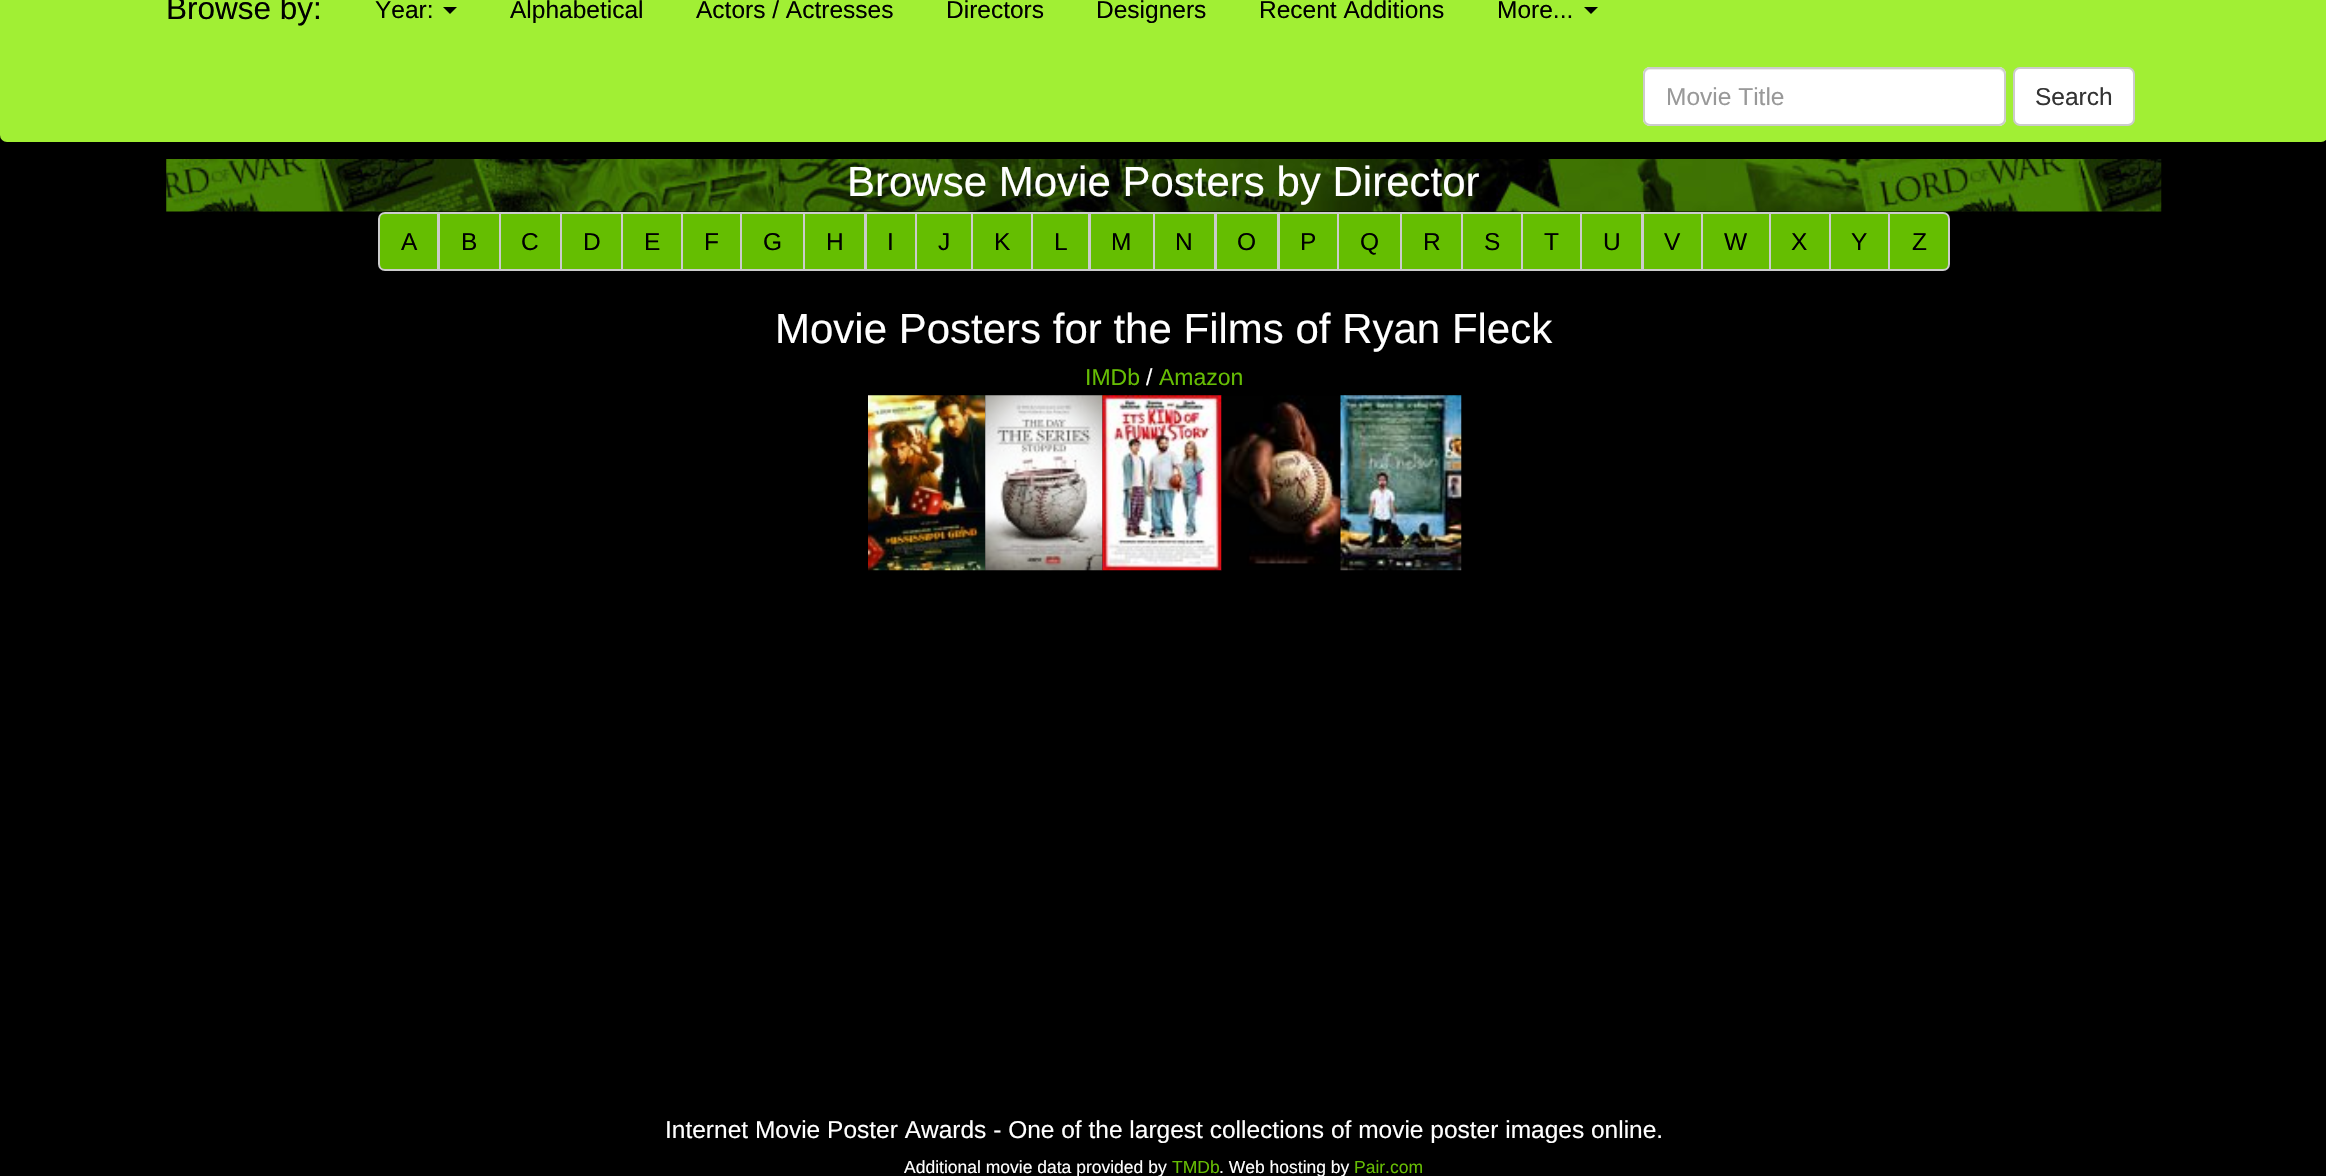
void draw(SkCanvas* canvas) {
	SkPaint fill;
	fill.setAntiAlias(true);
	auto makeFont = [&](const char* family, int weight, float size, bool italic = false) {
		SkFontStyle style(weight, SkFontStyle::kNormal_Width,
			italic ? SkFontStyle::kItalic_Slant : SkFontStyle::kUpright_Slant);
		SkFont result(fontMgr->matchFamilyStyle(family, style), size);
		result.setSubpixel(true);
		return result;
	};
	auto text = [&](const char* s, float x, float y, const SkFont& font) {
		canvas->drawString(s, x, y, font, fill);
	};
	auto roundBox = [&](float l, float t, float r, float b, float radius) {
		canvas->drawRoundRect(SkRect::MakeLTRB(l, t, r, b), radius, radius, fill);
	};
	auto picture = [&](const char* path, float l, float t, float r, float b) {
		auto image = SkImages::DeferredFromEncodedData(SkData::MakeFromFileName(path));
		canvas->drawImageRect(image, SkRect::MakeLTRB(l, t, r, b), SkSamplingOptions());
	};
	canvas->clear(0xFF000000);
	fill.setColor(0xFFA1EF34);
	roundBox(0, -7, 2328, 142, 7);
	fill.setColor(0xFF000000);
	canvas->drawPath(SkPathBuilder().moveTo(443, 7).lineTo(457, 7).lineTo(450, 14).close().detach(), fill);
	canvas->drawPath(SkPathBuilder().moveTo(1584, 7).lineTo(1598, 7).lineTo(1591, 14).close().detach(), fill);
	fill.setColor(0xFFFFFFFF);
	roundBox(1643, 67, 2006, 126, 7);
	fill.setColor(0xFFECECEC);
	canvas->drawPath(SkPathBuilder().moveTo(1650, 70).lineTo(1998, 70).cubicTo(2001, 70, 2004, 72, 2004, 75).cubicTo(2004, 72, 2003, 68, 1999, 68).lineTo(1650, 68).cubicTo(1646, 68, 1645, 72, 1645, 75).cubicTo(1645, 72, 1647, 70, 1650, 70).close().detach(), fill);
	fill.setStyle(SkPaint::kStroke_Style);
	fill.setStrokeWidth(2);
	fill.setColor(0xFFCCCCCC);
	canvas->drawRoundRect(SkRect::MakeLTRB(1644, 68, 2005, 125), 6, 6, fill);
	fill.setStyle(SkPaint::kFill_Style);
	fill.setColor(0xFFFFFFFF);
	canvas->drawRoundRect(SkRect::MakeLTRB(2014, 68, 2134, 125), 6, 6, fill);
	fill.setStyle(SkPaint::kStroke_Style);
	fill.setColor(0xFFCCCCCC);
	canvas->drawRoundRect(SkRect::MakeLTRB(2014, 68, 2134, 125), 6, 6, fill);
	picture("image0.png", 166, 159, 2162, 212);
	fill.setStyle(SkPaint::kFill_Style);
	fill.setColor(0xFF65BE01);
	canvas->drawPath(SkPathBuilder().moveTo(385, 213).lineTo(438, 213).lineTo(438, 270).lineTo(385, 270).cubicTo(381.5f, 270, 379, 267.5f, 379, 264).lineTo(379, 219).cubicTo(379, 215.5f, 381.5f, 213, 385, 213).close().detach(), fill);
	fill.setStyle(SkPaint::kStroke_Style);
	fill.setColor(0xFFCCCCCC);
	canvas->drawPath(SkPathBuilder().moveTo(385, 213).lineTo(438, 213).lineTo(438, 270).lineTo(385, 270).cubicTo(381.5f, 270, 379, 267.5f, 379, 264).lineTo(379, 219).cubicTo(379, 215.5f, 381.5f, 213, 385, 213).close().detach(), fill);
	fill.setStyle(SkPaint::kFill_Style);
	fill.setColor(0xFF65BE01);
	canvas->drawRect(SkRect::MakeLTRB(439, 213, 500, 270), fill);
	fill.setStyle(SkPaint::kStroke_Style);
	fill.setColor(0xFFCCCCCC);
	canvas->drawRect(SkRect::MakeLTRB(439, 213, 500, 270), fill);
	fill.setStyle(SkPaint::kFill_Style);
	fill.setColor(0xFF65BE01);
	canvas->drawRect(SkRect::MakeLTRB(500, 213, 561, 270), fill);
	fill.setStyle(SkPaint::kStroke_Style);
	fill.setColor(0xFFCCCCCC);
	canvas->drawRect(SkRect::MakeLTRB(500, 213, 561, 270), fill);
	fill.setStyle(SkPaint::kFill_Style);
	fill.setColor(0xFF65BE01);
	canvas->drawRect(SkRect::MakeLTRB(561, 213, 622, 270), fill);
	fill.setStyle(SkPaint::kStroke_Style);
	fill.setColor(0xFFCCCCCC);
	canvas->drawRect(SkRect::MakeLTRB(561, 213, 622, 270), fill);
	fill.setStyle(SkPaint::kFill_Style);
	fill.setColor(0xFF65BE01);
	canvas->drawRect(SkRect::MakeLTRB(622, 213, 682, 270), fill);
	fill.setStyle(SkPaint::kStroke_Style);
	fill.setColor(0xFFCCCCCC);
	canvas->drawRect(SkRect::MakeLTRB(622, 213, 682, 270), fill);
	fill.setStyle(SkPaint::kFill_Style);
	fill.setColor(0xFF65BE01);
	canvas->drawRect(SkRect::MakeLTRB(682, 213, 741, 270), fill);
	fill.setStyle(SkPaint::kStroke_Style);
	fill.setColor(0xFFCCCCCC);
	canvas->drawRect(SkRect::MakeLTRB(682, 213, 741, 270), fill);
	fill.setStyle(SkPaint::kFill_Style);
	fill.setColor(0xFF65BE01);
	canvas->drawRect(SkRect::MakeLTRB(741, 213, 804, 270), fill);
	fill.setStyle(SkPaint::kStroke_Style);
	fill.setColor(0xFFCCCCCC);
	canvas->drawRect(SkRect::MakeLTRB(741, 213, 804, 270), fill);
	fill.setStyle(SkPaint::kFill_Style);
	fill.setColor(0xFF65BE01);
	canvas->drawRect(SkRect::MakeLTRB(804, 213, 865, 270), fill);
	fill.setStyle(SkPaint::kStroke_Style);
	fill.setColor(0xFFCCCCCC);
	canvas->drawRect(SkRect::MakeLTRB(804, 213, 865, 270), fill);
	fill.setStyle(SkPaint::kFill_Style);
	fill.setColor(0xFF65BE01);
	canvas->drawRect(SkRect::MakeLTRB(866, 213, 916, 270), fill);
	fill.setStyle(SkPaint::kStroke_Style);
	fill.setColor(0xFFCCCCCC);
	canvas->drawRect(SkRect::MakeLTRB(866, 213, 916, 270), fill);
	fill.setStyle(SkPaint::kFill_Style);
	fill.setColor(0xFF65BE01);
	canvas->drawRect(SkRect::MakeLTRB(916, 213, 972, 270), fill);
	fill.setStyle(SkPaint::kStroke_Style);
	fill.setColor(0xFFCCCCCC);
	canvas->drawRect(SkRect::MakeLTRB(916, 213, 972, 270), fill);
	fill.setStyle(SkPaint::kFill_Style);
	fill.setColor(0xFF65BE01);
	canvas->drawRect(SkRect::MakeLTRB(972, 213, 1032, 270), fill);
	fill.setStyle(SkPaint::kStroke_Style);
	fill.setColor(0xFFCCCCCC);
	canvas->drawRect(SkRect::MakeLTRB(972, 213, 1032, 270), fill);
	fill.setStyle(SkPaint::kFill_Style);
	fill.setColor(0xFF65BE01);
	canvas->drawRect(SkRect::MakeLTRB(1032, 213, 1089, 270), fill);
	fill.setStyle(SkPaint::kStroke_Style);
	fill.setColor(0xFFCCCCCC);
	canvas->drawRect(SkRect::MakeLTRB(1032, 213, 1089, 270), fill);
	fill.setStyle(SkPaint::kFill_Style);
	fill.setColor(0xFF65BE01);
	canvas->drawRect(SkRect::MakeLTRB(1090, 213, 1154, 270), fill);
	fill.setStyle(SkPaint::kStroke_Style);
	fill.setColor(0xFFCCCCCC);
	canvas->drawRect(SkRect::MakeLTRB(1090, 213, 1154, 270), fill);
	fill.setStyle(SkPaint::kFill_Style);
	fill.setColor(0xFF65BE01);
	canvas->drawRect(SkRect::MakeLTRB(1154, 213, 1215, 270), fill);
	fill.setStyle(SkPaint::kStroke_Style);
	fill.setColor(0xFFCCCCCC);
	canvas->drawRect(SkRect::MakeLTRB(1154, 213, 1215, 270), fill);
	fill.setStyle(SkPaint::kFill_Style);
	fill.setColor(0xFF65BE01);
	canvas->drawRect(SkRect::MakeLTRB(1216, 213, 1278, 270), fill);
	fill.setStyle(SkPaint::kStroke_Style);
	fill.setColor(0xFFCCCCCC);
	canvas->drawRect(SkRect::MakeLTRB(1216, 213, 1278, 270), fill);
	fill.setStyle(SkPaint::kFill_Style);
	fill.setColor(0xFF65BE01);
	canvas->drawRect(SkRect::MakeLTRB(1279, 213, 1338, 270), fill);
	fill.setStyle(SkPaint::kStroke_Style);
	fill.setColor(0xFFCCCCCC);
	canvas->drawRect(SkRect::MakeLTRB(1279, 213, 1338, 270), fill);
	fill.setStyle(SkPaint::kFill_Style);
	fill.setColor(0xFF65BE01);
	canvas->drawRect(SkRect::MakeLTRB(1338, 213, 1401, 270), fill);
	fill.setStyle(SkPaint::kStroke_Style);
	fill.setColor(0xFFCCCCCC);
	canvas->drawRect(SkRect::MakeLTRB(1338, 213, 1401, 270), fill);
	fill.setStyle(SkPaint::kFill_Style);
	fill.setColor(0xFF65BE01);
	canvas->drawRect(SkRect::MakeLTRB(1401, 213, 1462, 270), fill);
	fill.setStyle(SkPaint::kStroke_Style);
	fill.setColor(0xFFCCCCCC);
	canvas->drawRect(SkRect::MakeLTRB(1401, 213, 1462, 270), fill);
	fill.setStyle(SkPaint::kFill_Style);
	fill.setColor(0xFF65BE01);
	canvas->drawRect(SkRect::MakeLTRB(1462, 213, 1522, 270), fill);
	fill.setStyle(SkPaint::kStroke_Style);
	fill.setColor(0xFFCCCCCC);
	canvas->drawRect(SkRect::MakeLTRB(1462, 213, 1522, 270), fill);
	fill.setStyle(SkPaint::kFill_Style);
	fill.setColor(0xFF65BE01);
	canvas->drawRect(SkRect::MakeLTRB(1522, 213, 1581, 270), fill);
	fill.setStyle(SkPaint::kStroke_Style);
	fill.setColor(0xFFCCCCCC);
	canvas->drawRect(SkRect::MakeLTRB(1522, 213, 1581, 270), fill);
	fill.setStyle(SkPaint::kFill_Style);
	fill.setColor(0xFF65BE01);
	canvas->drawRect(SkRect::MakeLTRB(1581, 213, 1642, 270), fill);
	fill.setStyle(SkPaint::kStroke_Style);
	fill.setColor(0xFFCCCCCC);
	canvas->drawRect(SkRect::MakeLTRB(1581, 213, 1642, 270), fill);
	fill.setStyle(SkPaint::kFill_Style);
	fill.setColor(0xFF65BE01);
	canvas->drawRect(SkRect::MakeLTRB(1643, 213, 1702, 270), fill);
	fill.setStyle(SkPaint::kStroke_Style);
	fill.setColor(0xFFCCCCCC);
	canvas->drawRect(SkRect::MakeLTRB(1643, 213, 1702, 270), fill);
	fill.setStyle(SkPaint::kFill_Style);
	fill.setColor(0xFF65BE01);
	canvas->drawRect(SkRect::MakeLTRB(1702, 213, 1770, 270), fill);
	fill.setStyle(SkPaint::kStroke_Style);
	fill.setColor(0xFFCCCCCC);
	canvas->drawRect(SkRect::MakeLTRB(1702, 213, 1770, 270), fill);
	fill.setStyle(SkPaint::kFill_Style);
	fill.setColor(0xFF65BE01);
	canvas->drawRect(SkRect::MakeLTRB(1770, 213, 1830, 270), fill);
	fill.setStyle(SkPaint::kStroke_Style);
	fill.setColor(0xFFCCCCCC);
	canvas->drawRect(SkRect::MakeLTRB(1770, 213, 1830, 270), fill);
	fill.setStyle(SkPaint::kFill_Style);
	fill.setColor(0xFF65BE01);
	canvas->drawRect(SkRect::MakeLTRB(1830, 213, 1889, 270), fill);
	fill.setStyle(SkPaint::kStroke_Style);
	fill.setColor(0xFFCCCCCC);
	canvas->drawRect(SkRect::MakeLTRB(1830, 213, 1889, 270), fill);
	fill.setStyle(SkPaint::kFill_Style);
	fill.setColor(0xFF65BE01);
	canvas->drawPath(SkPathBuilder().moveTo(1889, 213).lineTo(1943, 213).cubicTo(1946.5f, 213, 1949, 215.5f, 1949, 219).lineTo(1949, 264).cubicTo(1949, 267.5f, 1946.5f, 270, 1943, 270).lineTo(1889, 270).close().detach(), fill);
	fill.setStyle(SkPaint::kStroke_Style);
	fill.setColor(0xFFCCCCCC);
	canvas->drawPath(SkPathBuilder().moveTo(1889, 213).lineTo(1943, 213).cubicTo(1946.5f, 213, 1949, 215.5f, 1949, 219).lineTo(1949, 264).cubicTo(1949, 267.5f, 1946.5f, 270, 1943, 270).lineTo(1889, 270).close().detach(), fill);
	picture("image1.png", 868, 395, 986, 571);
	picture("image2.png", 985, 395, 1103, 571);
	picture("image3.png", 1102, 395, 1222, 571);
	picture("image4.png", 1221, 395, 1341, 570);
	picture("image5.png", 1340, 395, 1462, 571);
	auto font1 = makeFont("Liberation Sans", 400, 31.5f);
	fill.setStyle(SkPaint::kFill_Style);
	fill.setColor(0xFF000000);
	text("Browse by:", 166, 19, font1);
	auto font2 = makeFont("Liberation Sans", 400, 24.5f);
	text("Year:", 375, 18, font2);
	text("Alphabetical", 510, 18, font2);
	text("Actors / Actresses", 696, 18, font2);
	text("Directors", 946, 18, font2);
	text("Designers", 1096, 18, font2);
	text("Recent Additions", 1259, 18, font2);
	text("More...", 1497, 18, font2);
	fill.setColor(0xFF999999);
	text("Movie Title", 1666, 105, font2);
	fill.setColor(0xFF333333);
	text("Search", 2035, 105, font2);
	auto font3 = makeFont("Liberation Sans", 400, 42);
	fill.setColor(0xFFFFFFFF);
	text("Browse Movie Posters by Director", 847, 196, font3);
	fill.setColor(0xFF000000);
	text("A", 401, 250, font2);
	text("B", 461, 250, font2);
	text("C", 521, 250, font2);
	text("D", 583, 250, font2);
	text("E", 644, 250, font2);
	text("F", 704, 250, font2);
	text("G", 763, 250, font2);
	text("H", 826, 250, font2);
	text("I", 887, 250, font2);
	text("J", 938, 250, font2);
	text("K", 994, 250, font2);
	text("L", 1054, 250, font2);
	text("M", 1111, 250, font2);
	text("N", 1175, 250, font2);
	text("O", 1237, 250, font2);
	text("P", 1300, 250, font2);
	text("Q", 1360, 250, font2);
	text("R", 1423, 250, font2);
	text("S", 1484, 250, font2);
	text("T", 1544, 250, font2);
	text("U", 1603, 250, font2);
	text("V", 1664, 250, font2);
	text("W", 1724, 250, font2);
	text("X", 1791, 250, font2);
	text("Y", 1851, 250, font2);
	text("Z", 1912, 250, font2);
	fill.setColor(0xFFFFFFFF);
	text("Movie Posters for the Films of Ryan Fleck", 775, 343, font3);
	auto font4 = makeFont("Liberation Sans", 400, 23);
	fill.setColor(0xFF66BD04);
	text("IMDb", 1085, 385, font4);
	fill.setColor(0xFFFFFFFF);
	text("/", 1146, 385, font4);
	fill.setColor(0xFF66BD04);
	text("Amazon", 1159, 385, font4);
	fill.setColor(0xFFFFFFFF);
	text("Internet Movie Poster Awards - One of the largest collections of movie poster images online.", 665, 1138, font2);
	auto font5 = makeFont("Liberation Sans", 400, 17.5f);
	text("Additional movie data provided by", 904, 1173, font5);
	fill.setColor(0xFF66BD04);
	text("TMDb", 1172, 1173, font5);
	fill.setColor(0xFFFFFFFF);
	text(". Web hosting by", 1219, 1173, font5);
	fill.setColor(0xFF66BD04);
	text("Pair.com", 1354, 1173, font5);
}
